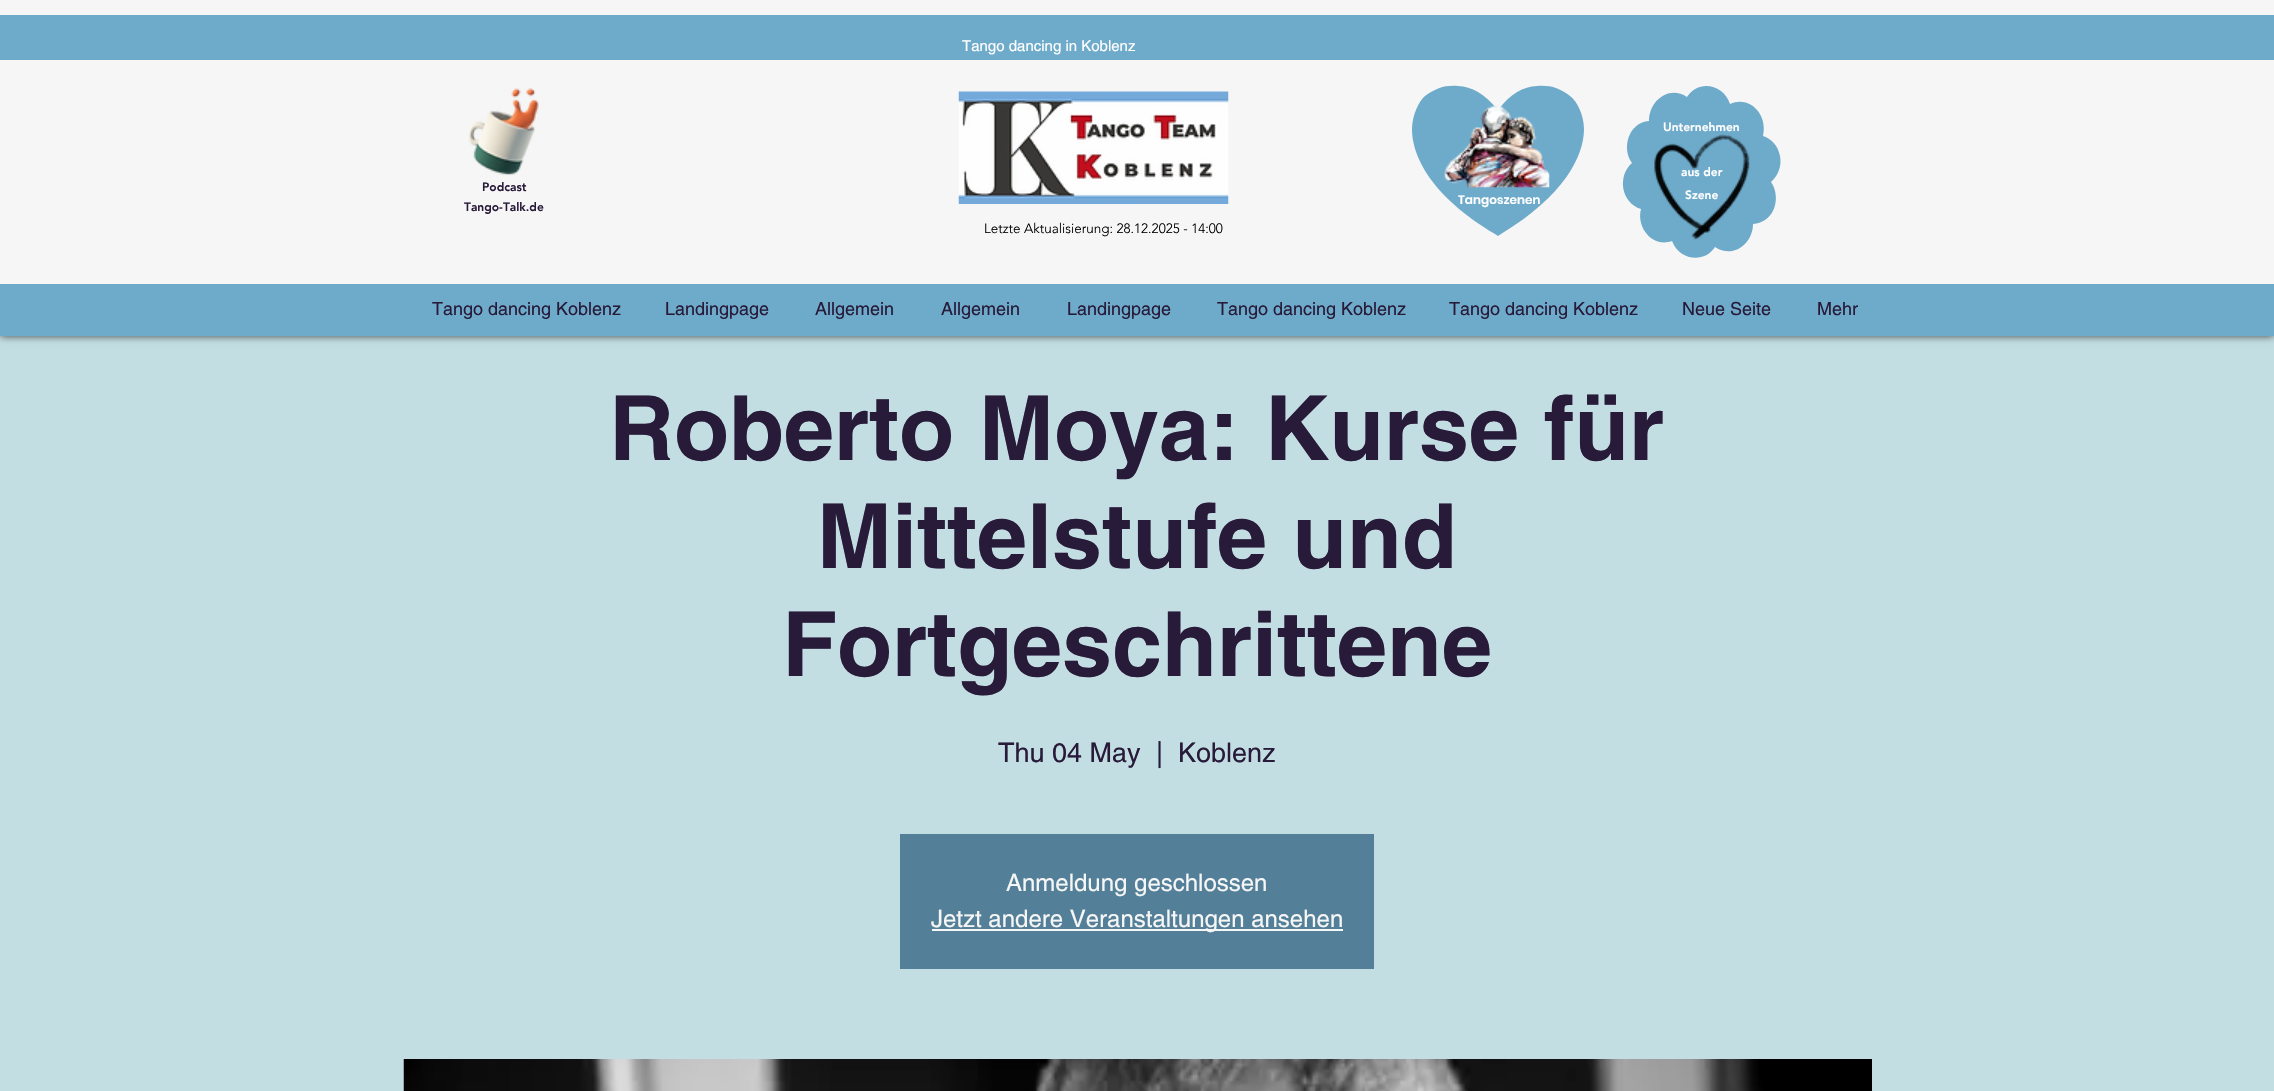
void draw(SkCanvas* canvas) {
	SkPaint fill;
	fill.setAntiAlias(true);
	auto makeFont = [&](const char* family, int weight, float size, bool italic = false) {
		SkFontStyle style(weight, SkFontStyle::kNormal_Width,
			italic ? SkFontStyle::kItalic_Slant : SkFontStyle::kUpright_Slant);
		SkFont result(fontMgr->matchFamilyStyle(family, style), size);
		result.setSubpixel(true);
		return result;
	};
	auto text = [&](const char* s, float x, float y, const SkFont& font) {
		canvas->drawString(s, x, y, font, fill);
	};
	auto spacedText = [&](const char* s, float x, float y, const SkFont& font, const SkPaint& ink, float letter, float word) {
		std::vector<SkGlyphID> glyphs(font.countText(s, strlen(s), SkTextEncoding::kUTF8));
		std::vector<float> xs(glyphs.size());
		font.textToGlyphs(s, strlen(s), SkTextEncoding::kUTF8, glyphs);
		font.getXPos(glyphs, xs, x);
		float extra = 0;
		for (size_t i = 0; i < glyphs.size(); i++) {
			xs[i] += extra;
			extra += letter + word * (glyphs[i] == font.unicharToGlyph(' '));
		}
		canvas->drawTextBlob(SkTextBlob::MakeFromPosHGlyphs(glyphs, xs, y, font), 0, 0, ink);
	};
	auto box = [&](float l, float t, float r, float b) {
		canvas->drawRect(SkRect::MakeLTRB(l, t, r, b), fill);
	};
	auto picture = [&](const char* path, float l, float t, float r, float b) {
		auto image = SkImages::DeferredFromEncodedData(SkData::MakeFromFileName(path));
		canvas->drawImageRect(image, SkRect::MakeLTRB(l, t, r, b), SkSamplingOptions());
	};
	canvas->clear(0xFFC3DEE3);
	fill.setColor(0xB3000000);
	fill.setMaskFilter(SkMaskFilter::MakeBlur(kNormal_SkBlurStyle, 4));
	canvas->drawRect(SkRect::MakeLTRB(0, 0, 2274, 336), fill);
	fill.setMaskFilter(nullptr);
	fill.setColor(0xFFF6F6F6);
	box(0, 0, 2274, 284);
	fill.setColor(0xFF6EABCB);
	box(0, 15, 2274, 60);
	picture("image0.png", 468, 88, 539, 176);
	picture("image1.png", 958, 91, 1229, 204);
	canvas->drawPath(SkPathBuilder().moveTo(1570, 96).cubicTo(1560, 88, 1550, 85, 1537, 86).cubicTo(1523, 87, 1511, 93, 1498, 110).cubicTo(1484, 93, 1472, 87, 1458, 86).cubicTo(1445, 85, 1436, 88, 1425, 96).cubicTo(1419, 101, 1412, 115, 1412, 129).cubicTo(1412, 156, 1431, 196, 1495, 234).lineTo(1498, 236).lineTo(1501, 234).cubicTo(1564, 196, 1584, 156, 1584, 129).cubicTo(1584, 115, 1577, 101, 1570, 96).close().detach(), fill);
	picture("image2.png", 1444, 105, 1550, 188);
	canvas->drawPath(SkPathBuilder(SkPathFillType::kEvenOdd).moveTo(1780, 156).cubicTo(1778, 146, 1772, 139, 1763, 136).cubicTo(1768, 116, 1751, 95, 1730, 104).cubicTo(1724, 84, 1698, 79, 1687, 97).cubicTo(1669, 85, 1649, 101, 1649, 121).cubicTo(1629, 122, 1621, 148, 1632, 163).cubicTo(1617, 176, 1621, 203, 1641, 209).cubicTo(1636, 228, 1653, 248, 1672, 241).cubicTo(1679, 260, 1704, 264, 1715, 247).cubicTo(1733, 259, 1753, 244, 1753, 224).cubicTo(1774, 223, 1782, 198, 1771, 182).cubicTo(1778, 176, 1782, 166, 1780, 156).detach(), fill);
	picture("image3.png", 1654, 134, 1750, 240);
	box(0, 284, 2274, 336);
	fill.setColor(0xFF538098);
	box(900, 834, 1374, 969);
	fill.setColor(0xFFF6F6F6);
	box(932, 929, 1343, 931);
	picture("image4.png", 403, 1059, 1872, 1091);
	auto font1 = makeFont("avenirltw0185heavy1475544", 900, 12);
	fill.setColor(0xFF281A39);
	text("Podcast", 482, 191, font1);
	text("Tango-Talk.de", 464, 211, font1);
	auto font2 = makeFont("helvetica", 400, 15);
	fill.setColor(0xFFFFFFFF);
	text("Tango dancing in Koblenz", 962, 51, font2);
	auto font3 = makeFont("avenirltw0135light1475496", 300, 13.5f);
	fill.setColor(0xFF000000);
	text("Letzte Aktualisierung: 28.12.2025 - 14:00", 984, 233, font3);
	fill.setColor(0xFFFFFFFF);
	text("Unternehmen", 1663, 131, font1);
	text("aus der", 1681, 176, font1);
	text("Szene", 1685, 199, font1);
	auto font4 = makeFont("Poppins", 600, 12);
	spacedText("Tangoszenen", 1458, 204, font4, fill, 0.1f, 0);
	auto font5 = makeFont("helvetica", 400, 18);
	fill.setColor(0xFF281A39);
	text("Tango dancing Koblenz", 432, 315, font5);
	text("Landingpage", 665, 315, font5);
	text("Allgemein", 815, 315, font5);
	text("Allgemein", 941, 315, font5);
	text("Landingpage", 1067, 315, font5);
	text("Tango dancing Koblenz", 1217, 315, font5);
	text("Tango dancing Koblenz", 1449, 315, font5);
	text("Neue Seite", 1682, 315, font5);
	text("Mehr", 1817, 315, font5);
	auto font6 = makeFont("helvetica", 700, 90);
	text("Roberto Moya: Kurse für", 609, 460, font6);
	text("Mittelstufe und", 817, 568, font6);
	text("Fortgeschrittene", 782, 676, font6);
	auto font7 = makeFont("helvetica", 400, 27);
	text("Thu 04 May", 998, 762, font7);
	text("|", 1156, 762, font7);
	text("Koblenz", 1178, 762, font7);
	auto font8 = makeFont("helvetica", 400, 24);
	fill.setColor(0xFFF6F6F6);
	text("Anmeldung geschlossen", 1006, 891, font8);
	text("Jetzt andere Veranstaltungen ansehen", 931, 927, font8);
}
